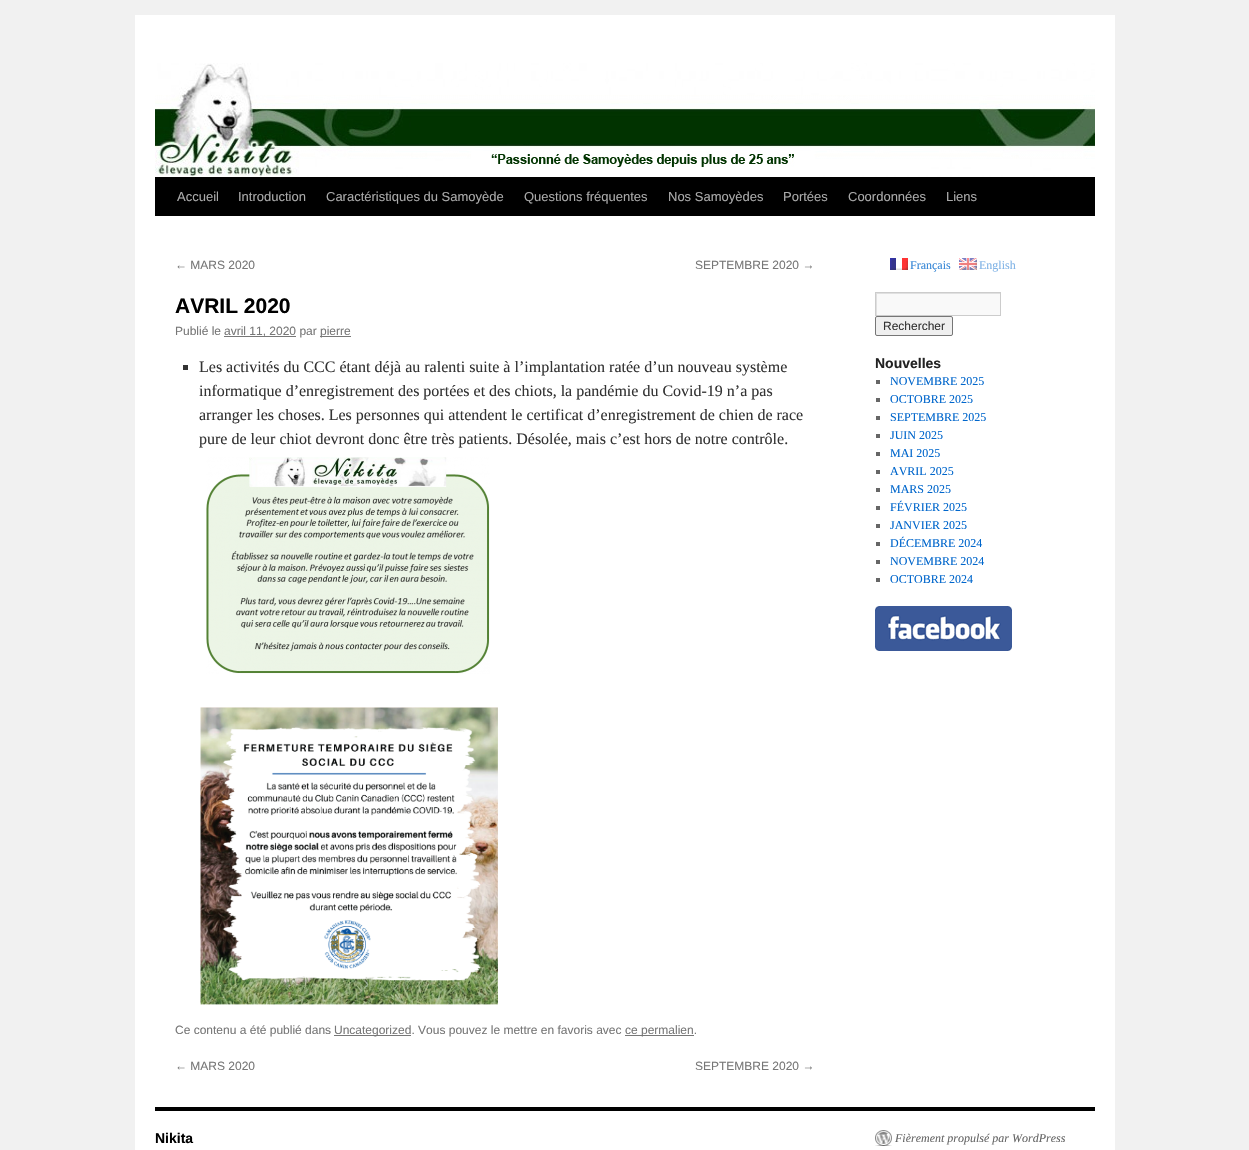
void draw(SkCanvas* canvas) {
	SkPaint fill;
	fill.setAntiAlias(true);
	auto makeFont = [&](const char* family, int weight, float size, bool italic = false) {
		SkFontStyle style(weight, SkFontStyle::kNormal_Width,
			italic ? SkFontStyle::kItalic_Slant : SkFontStyle::kUpright_Slant);
		SkFont result(fontMgr->matchFamilyStyle(family, style), size);
		result.setSubpixel(true);
		return result;
	};
	auto text = [&](const char* s, float x, float y, const SkFont& font) {
		canvas->drawString(s, x, y, font, fill);
	};
	auto box = [&](float l, float t, float r, float b) {
		canvas->drawRect(SkRect::MakeLTRB(l, t, r, b), fill);
	};
	auto picture = [&](const char* path, float l, float t, float r, float b) {
		auto image = SkImages::DeferredFromEncodedData(SkData::MakeFromFileName(path));
		canvas->drawImageRect(image, SkRect::MakeLTRB(l, t, r, b), SkSamplingOptions());
	};
	canvas->clear(0xFFF1F1F1);
	fill.setColor(0xFFFFFFFF);
	box(135, 15, 1115, 1150);
	fill.setColor(0xFF000000);
	box(155, 177, 1095, 216);
	picture("image0.png", 155, 63, 1095, 177);
	fill.setColor(0xFF777777);
	box(224, 336, 296, 337);
	box(320, 336, 351, 337);
	fill.setColor(0xFF333333);
	box(183, 365, 188, 370);
	picture("image1.png", 206, 457, 490, 674);
	picture("image2.png", 200, 707, 498, 1005);
	fill.setColor(0xFF777777);
	box(334, 1035, 411, 1036);
	box(625, 1035, 694, 1036);
	picture("image3.png", 890, 258, 908, 270);
	picture("image4.png", 959, 258, 977, 270);
	fill.setColor(0xFFF9F9F9);
	box(877, 294, 1000, 315);
	canvas->save();
	canvas->clipRect(SkRect::MakeLTRB(876, 293, 1000, 315));
	fill.setColor(0xFFE0E0E0);
	canvas->drawPath(SkPathBuilder(SkPathFillType::kEvenOdd).moveTo(777, 194).lineTo(1099, 194).lineTo(1099, 414).lineTo(777, 414).close().moveTo(877, 294).lineTo(1001, 294).lineTo(1001, 316).lineTo(877, 316).close().detach(), fill);
	canvas->restore();
	fill.setStyle(SkPaint::kStroke_Style);
	fill.setStrokeWidth(1);
	fill.setColor(0xFFCCCCCC);
	canvas->drawRect(SkRect::MakeLTRB(875.5f, 292.5f, 1000.5f, 315.5f), fill);
	fill.setStyle(SkPaint::kFill_Style);
	fill.setColor(0xFFEFEFEF);
	canvas->drawRoundRect(SkRect::MakeLTRB(875.5f, 316.5f, 952.5f, 335.5f), 1.5f, 1.5f, fill);
	fill.setStyle(SkPaint::kStroke_Style);
	fill.setColor(0xFF767676);
	canvas->drawRoundRect(SkRect::MakeLTRB(875.5f, 316.5f, 952.5f, 335.5f), 1.5f, 1.5f, fill);
	fill.setStyle(SkPaint::kFill_Style);
	fill.setColor(0xFF666666);
	box(876, 380, 880, 384);
	box(876, 398, 880, 402);
	box(876, 416, 880, 420);
	box(876, 434, 880, 438);
	box(876, 452, 880, 456);
	box(876, 470, 880, 474);
	box(876, 488, 880, 492);
	box(876, 506, 880, 510);
	box(876, 524, 880, 528);
	box(876, 542, 880, 546);
	box(876, 560, 880, 564);
	box(876, 578, 880, 582);
	picture("image5.png", 875, 606, 1012, 651);
	fill.setColor(0xFF000000);
	box(155, 1107, 1095, 1111);
	picture("image6.png", 875, 1130, 892, 1146);
	auto font1 = makeFont("Liberation Sans", 400, 13);
	fill.setColor(0xFFAAAAAA);
	text("Accueil", 177, 201, font1);
	text("Introduction", 238, 201, font1);
	text("Caractéristiques du Samoyède", 326, 201, font1);
	text("Questions fréquentes", 524, 201, font1);
	text("Nos Samoyèdes", 668, 201, font1);
	text("Portées", 783, 201, font1);
	text("Coordonnées", 848, 201, font1);
	text("Liens", 946, 201, font1);
	auto font2 = makeFont("Liberation Sans", 400, 12);
	fill.setColor(0xFF777777);
	text("← MARS 2020", 175, 269, font2);
	text("SEPTEMBRE 2020 →", 695, 269, font2);
	auto font3 = makeFont("Liberation Sans", 700, 21);
	fill.setColor(0xFF000000);
	text("AVRIL 2020", 175, 313, font3);
	fill.setColor(0xFF777777);
	text("Publié le", 175, 335, font2);
	text("avril 11, 2020 par", 224, 335, font2);
	text("pierre", 320, 335, font2);
	auto font4 = makeFont("Liberation Serif", 400, 16);
	fill.setColor(0xFF333333);
	text("Les activités du CCC étant déjà au ralenti suite à l’implantation ratée d’un nouveau système", 199, 372, font4);
	text("informatique d’enregistrement des portées et des chiots, la pandémie du Covid-19 n’a pas", 199, 396, font4);
	text("arranger les choses. Les personnes qui attendent le certificat d’enregistrement de chien de race", 199, 420, font4);
	text("pure de leur chiot devront donc être très patients. Désolée, mais c’est hors de notre contrôle.", 199, 444, font4);
	fill.setColor(0xFF777777);
	text("Ce contenu a été publié dans", 175, 1034, font2);
	text("Uncategorized. Vous pouvez le mettre en favoris avec", 334, 1034, font2);
	text("ce permalien.", 625, 1034, font2);
	text("← MARS 2020", 175, 1070, font2);
	text("SEPTEMBRE 2020 →", 695, 1070, font2);
	auto font5 = makeFont("Liberation Serif", 400, 12);
	fill.setColor(0xFF3385D6);
	text("Français", 910, 269, font5);
	fill.setColor(0xFF80B3E6);
	text("English", 979, 269, font5);
	fill.setColor(0xFF333333);
	text("Rechercher", 883, 330, font2);
	auto font6 = makeFont("Liberation Sans", 700, 14);
	fill.setColor(0xFF222222);
	text("Nouvelles", 875, 368, font6);
	fill.setColor(0xFF0066CC);
	text("NOVEMBRE 2025", 890, 385, font5);
	text("OCTOBRE 2025", 890, 403, font5);
	text("SEPTEMBRE 2025", 890, 421, font5);
	text("JUIN 2025", 890, 439, font5);
	text("MAI 2025", 890, 457, font5);
	text("AVRIL 2025", 890, 475, font5);
	text("MARS 2025", 890, 493, font5);
	text("FÉVRIER 2025", 890, 511, font5);
	text("JANVIER 2025", 890, 529, font5);
	text("DÉCEMBRE 2024", 890, 547, font5);
	text("NOVEMBRE 2024", 890, 565, font5);
	text("OCTOBRE 2024", 890, 583, font5);
	fill.setColor(0xFF000000);
	text("Nikita", 155, 1143, font6);
	auto font7 = makeFont("Liberation Serif", 400, 12, true);
	fill.setColor(0xFF666666);
	text("Fièrement propulsé par WordPress", 895, 1142, font7);
}
